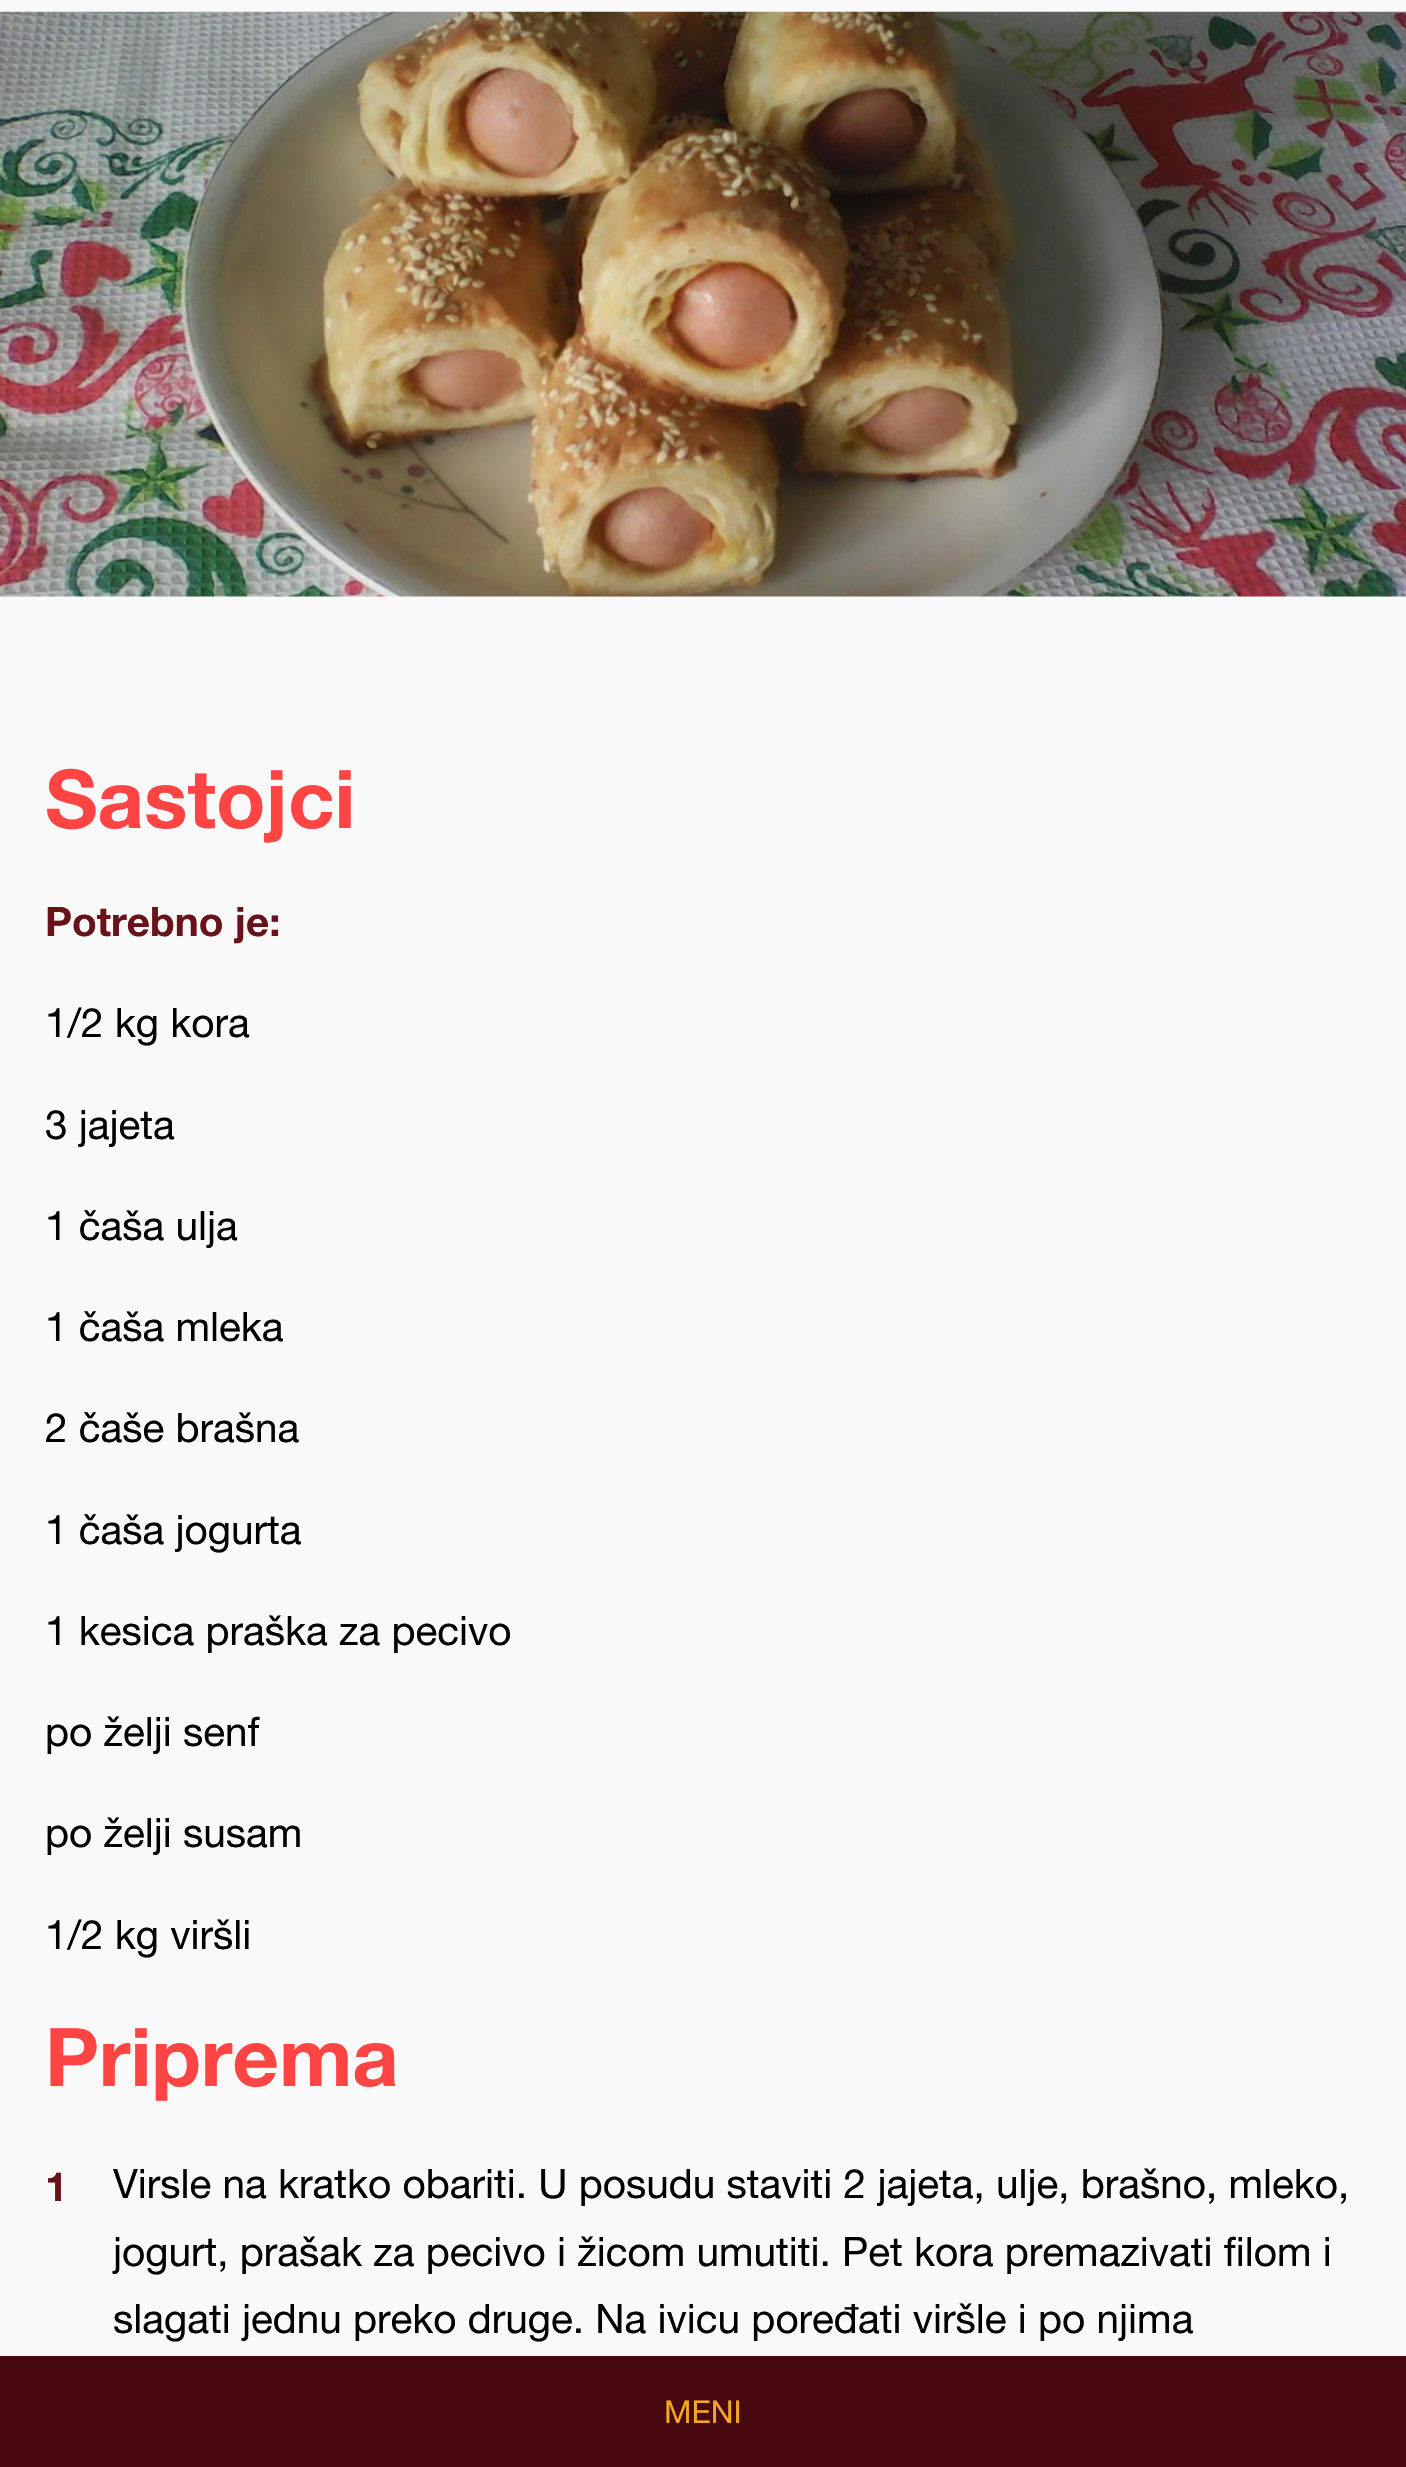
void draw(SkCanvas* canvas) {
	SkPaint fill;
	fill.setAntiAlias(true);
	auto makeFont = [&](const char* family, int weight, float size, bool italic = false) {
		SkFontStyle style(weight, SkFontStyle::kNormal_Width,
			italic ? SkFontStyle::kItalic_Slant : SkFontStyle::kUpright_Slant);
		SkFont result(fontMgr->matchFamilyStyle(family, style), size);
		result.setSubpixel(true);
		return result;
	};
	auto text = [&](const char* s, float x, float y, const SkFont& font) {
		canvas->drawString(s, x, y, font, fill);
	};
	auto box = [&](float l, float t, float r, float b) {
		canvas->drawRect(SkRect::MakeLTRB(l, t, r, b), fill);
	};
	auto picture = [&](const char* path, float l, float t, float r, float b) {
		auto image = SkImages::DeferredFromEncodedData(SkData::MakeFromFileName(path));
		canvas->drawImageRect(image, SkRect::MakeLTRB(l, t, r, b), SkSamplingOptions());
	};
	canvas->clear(0xFFF9F9F9);
	picture("image0.png", 0, 11, 1406, 597);
	fill.setColor(0xFF47090F);
	box(0, 2356, 1406, 2467);
	auto font1 = makeFont("Helvetica Neue", 700, 81);
	fill.setColor(0xFFFF4544);
	text("Sastojci", 45, 828, font1);
	auto font2 = makeFont("Helvetica Neue", 700, 40.5f);
	fill.setColor(0xFF68121A);
	text("Potrebno je:", 45, 936, font2);
	auto font3 = makeFont("Helvetica Neue", 400, 40.5f);
	fill.setColor(0xFF000000);
	text("1/2 kg kora", 45, 1037, font3);
	text("3 jajeta", 45, 1139, font3);
	text("1 čaša ulja", 45, 1240, font3);
	text("1 čaša mleka", 45, 1341, font3);
	text("2 čaše brašna", 45, 1442, font3);
	text("1 čaša jogurta", 45, 1544, font3);
	text("1 kesica praška za pecivo", 45, 1645, font3);
	text("po želji senf", 45, 1746, font3);
	text("po želji susam", 45, 1847, font3);
	text("1/2 kg viršli", 45, 1949, font3);
	fill.setColor(0xFFFF4544);
	text("Priprema", 45, 2086, font1);
	fill.setColor(0xFF68121A);
	text("1", 45, 2201, font2);
	fill.setColor(0xFF000000);
	text("Virsle na kratko obariti. U posudu staviti 2 jajeta, ulje, brašno, mleko,", 113, 2198, font3);
	text("jogurt, prašak za pecivo i žicom umutiti. Pet kora premazivati filom i", 113, 2266, font3);
	text("slagati jednu preko druge. Na ivicu poređati viršle i po njima", 113, 2333, font3);
	auto font4 = makeFont("Helvetica Neue", 400, 31.5f);
	fill.setColor(0xFFF5A623);
	text("MENI", 664, 2423, font4);
}
